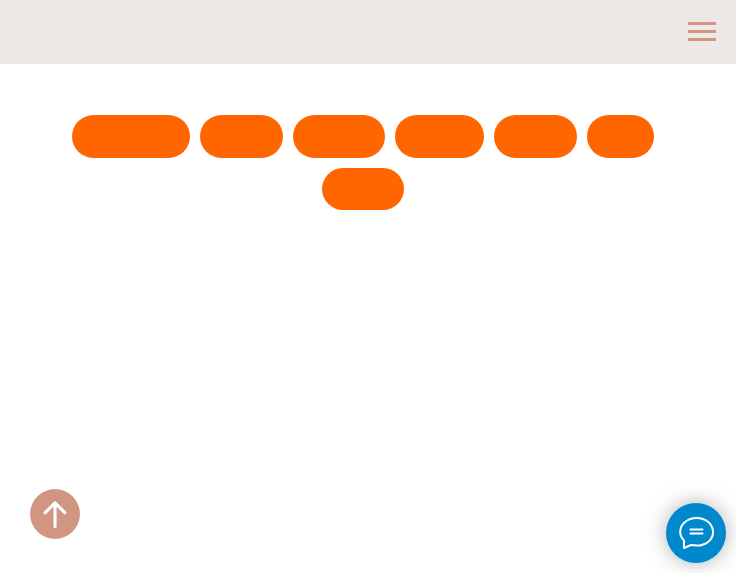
void draw(SkCanvas* canvas) {
	SkPaint fill;
	fill.setAntiAlias(true);
	auto box = [&](float l, float t, float r, float b) {
		canvas->drawRect(SkRect::MakeLTRB(l, t, r, b), fill);
	};
	auto roundBox = [&](float l, float t, float r, float b, float radius) {
		canvas->drawRoundRect(SkRect::MakeLTRB(l, t, r, b), radius, radius, fill);
	};
	auto picture = [&](const char* path, float l, float t, float r, float b) {
		auto image = SkImages::DeferredFromEncodedData(SkData::MakeFromFileName(path));
		canvas->drawImageRect(image, SkRect::MakeLTRB(l, t, r, b), SkSamplingOptions());
	};
	canvas->clear(0xFFFFFFFF);
	fill.setColor(0xFFEBE8E6);
	box(0, 0, 736, 64);
	fill.setColor(0xFFD19581);
	box(688, 22, 716, 25);
	box(688, 30, 716, 33);
	box(688, 38, 716, 41);
	fill.setColor(0xFFFF6600);
	roundBox(72, 115, 190, 158, 21.5f);
	roundBox(200, 115, 283, 158, 21.5f);
	roundBox(293, 115, 385, 158, 21.5f);
	roundBox(395, 115, 484, 158, 21.5f);
	roundBox(494, 115, 577, 158, 21.5f);
	roundBox(587, 115, 654, 158, 21.5f);
	roundBox(322, 168, 404, 210, 21);
	picture("image0.png", 30, 489, 80, 539);
	fill.setColor(0x4D000000);
	fill.setMaskFilter(SkMaskFilter::MakeBlur(kNormal_SkBlurStyle, 10));
	canvas->drawRoundRect(SkRect::MakeLTRB(666, 503, 726, 563), 30, 30, fill);
	fill.setMaskFilter(nullptr);
	fill.setColor(0xFF0088CC);
	canvas->drawCircle(696, 533, 30, fill);
	fill.setStyle(SkPaint::kStroke_Style);
	fill.setStrokeWidth(2);
	fill.setStrokeCap(SkPaint::kRound_Cap);
	fill.setStrokeJoin(SkPaint::kRound_Join);
	fill.setColor(0xFFFFFFFF);
	canvas->drawPath(SkPathBuilder().moveTo(690.5f, 529.5f).lineTo(702.5f, 529.5f).moveTo(690.5f, 533.5f).lineTo(702.5f, 533.5f).moveTo(684, 540.5f).cubicTo(678.5f, 535, 679, 527, 685, 522).cubicTo(688, 519.5f, 692.5f, 518, 696.5f, 518).cubicTo(716, 518, 719.5f, 542, 700, 545.5f).cubicTo(696, 546, 694.5f, 545, 691, 545).lineTo(684, 548).lineTo(684, 541).close().detach(), fill);
}
